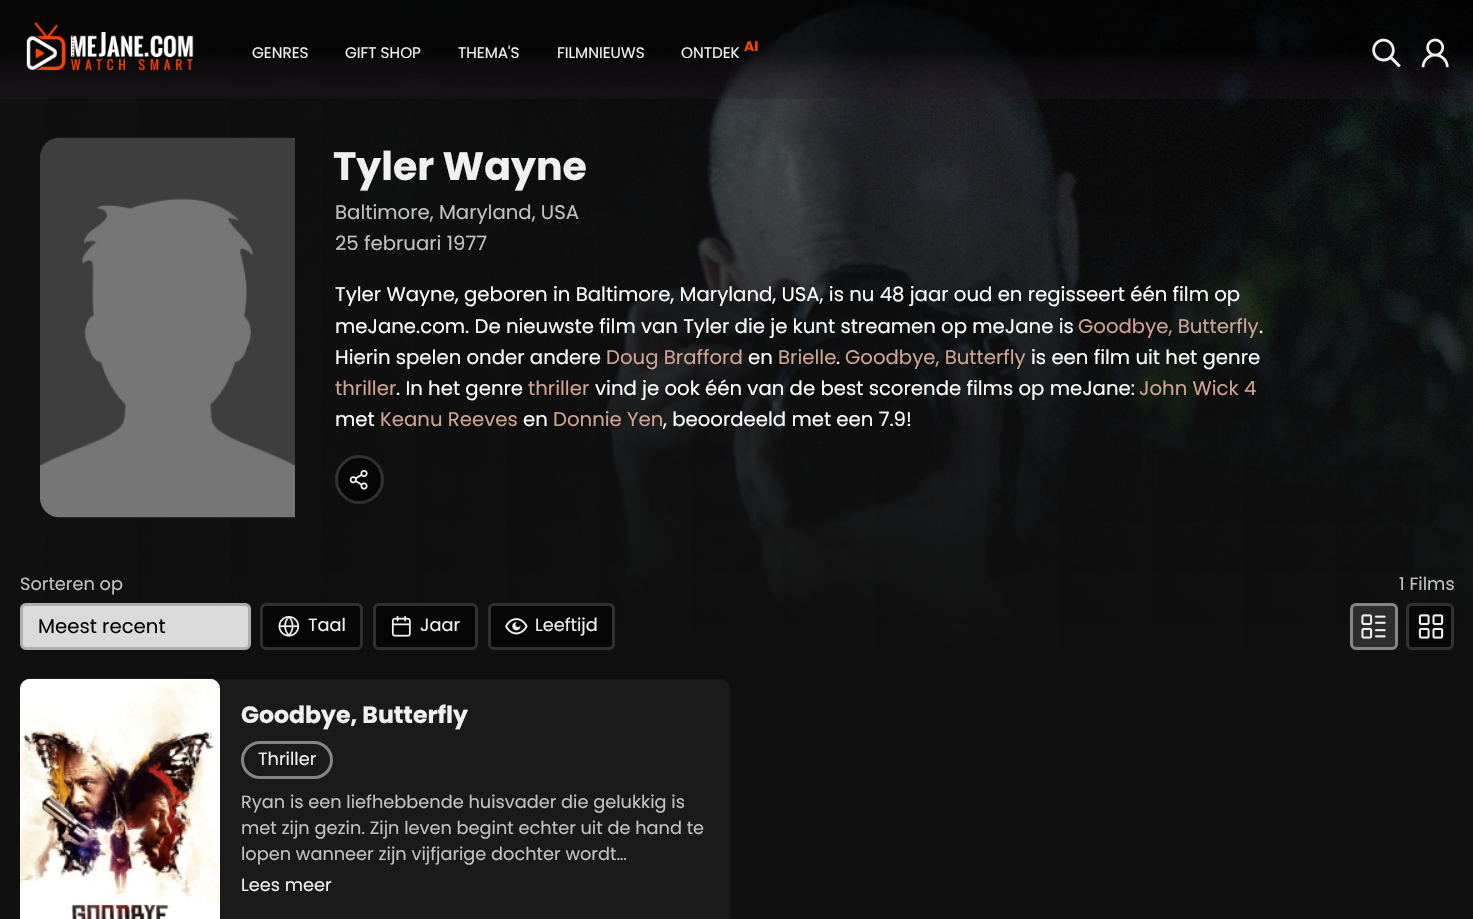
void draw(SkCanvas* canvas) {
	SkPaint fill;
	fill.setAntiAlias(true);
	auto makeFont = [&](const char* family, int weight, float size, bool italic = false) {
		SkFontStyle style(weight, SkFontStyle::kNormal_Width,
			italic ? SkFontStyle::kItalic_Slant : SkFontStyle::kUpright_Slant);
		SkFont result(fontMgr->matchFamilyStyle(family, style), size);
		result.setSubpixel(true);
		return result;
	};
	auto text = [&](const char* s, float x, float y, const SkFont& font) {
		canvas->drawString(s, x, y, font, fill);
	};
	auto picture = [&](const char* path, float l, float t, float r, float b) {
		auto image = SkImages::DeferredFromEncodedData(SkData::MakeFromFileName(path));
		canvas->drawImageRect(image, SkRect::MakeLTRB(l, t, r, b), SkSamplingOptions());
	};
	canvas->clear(0xFF101010);
	picture("image3.png", 0, 0, 1473, 650);
	picture("image0.png", 26, 22, 194, 70);
	picture("image1.png", 1372, 38, 1401, 68);
	picture("image2.png", 1421, 38, 1449, 68);
	picture("image4.png", 40, 137, 295, 518);
	fill.setColor(0xFF060606);
	canvas->drawCircle(359.5f, 479.5f, 23, fill);
	fill.setStyle(SkPaint::kStroke_Style);
	fill.setStrokeWidth(3);
	fill.setColor(0xFF323130);
	canvas->drawCircle(359.5f, 479.5f, 23, fill);
	picture("image5.png", 349, 469, 368, 490);
	fill.setStyle(SkPaint::kFill_Style);
	fill.setColor(0xFFDADADA);
	canvas->drawRoundRect(SkRect::MakeLTRB(21.5f, 604.5f, 249.5f, 648.5f), 4.5f, 4.5f, fill);
	fill.setStyle(SkPaint::kStroke_Style);
	fill.setColor(0xFFAFAFAF);
	canvas->drawRoundRect(SkRect::MakeLTRB(21.5f, 604.5f, 249.5f, 648.5f), 4.5f, 4.5f, fill);
	fill.setStyle(SkPaint::kFill_Style);
	fill.setColor(0xFF060606);
	canvas->drawRoundRect(SkRect::MakeLTRB(261.5f, 604.5f, 361.5f, 648.5f), 4.5f, 4.5f, fill);
	fill.setStyle(SkPaint::kStroke_Style);
	fill.setColor(0xFF323130);
	canvas->drawRoundRect(SkRect::MakeLTRB(261.5f, 604.5f, 361.5f, 648.5f), 4.5f, 4.5f, fill);
	picture("image6.png", 278, 615, 300, 637);
	fill.setStyle(SkPaint::kFill_Style);
	fill.setColor(0xFF060606);
	canvas->drawRoundRect(SkRect::MakeLTRB(374.5f, 604.5f, 476.5f, 648.5f), 4.5f, 4.5f, fill);
	fill.setStyle(SkPaint::kStroke_Style);
	fill.setColor(0xFF323130);
	canvas->drawRoundRect(SkRect::MakeLTRB(374.5f, 604.5f, 476.5f, 648.5f), 4.5f, 4.5f, fill);
	picture("image7.png", 391, 616, 411, 637);
	fill.setStyle(SkPaint::kFill_Style);
	fill.setColor(0xFF060606);
	canvas->drawRoundRect(SkRect::MakeLTRB(489.5f, 604.5f, 613.5f, 648.5f), 4.5f, 4.5f, fill);
	fill.setStyle(SkPaint::kStroke_Style);
	fill.setColor(0xFF323130);
	canvas->drawRoundRect(SkRect::MakeLTRB(489.5f, 604.5f, 613.5f, 648.5f), 4.5f, 4.5f, fill);
	picture("image8.png", 505, 618, 528, 635);
	fill.setStyle(SkPaint::kFill_Style);
	fill.setColor(0xFF2D2D2D);
	canvas->drawRoundRect(SkRect::MakeLTRB(1351.5f, 604.5f, 1396.5f, 648.5f), 4.5f, 4.5f, fill);
	fill.setStyle(SkPaint::kStroke_Style);
	fill.setColor(0xFF858585);
	canvas->drawRoundRect(SkRect::MakeLTRB(1351.5f, 604.5f, 1396.5f, 648.5f), 4.5f, 4.5f, fill);
	picture("image9.png", 1361, 614, 1386, 639);
	fill.setStyle(SkPaint::kFill_Style);
	fill.setColor(0x99000000);
	canvas->drawRoundRect(SkRect::MakeLTRB(1407.5f, 604.5f, 1452.5f, 648.5f), 4.5f, 4.5f, fill);
	fill.setStyle(SkPaint::kStroke_Style);
	fill.setColor(0xFF323130);
	canvas->drawRoundRect(SkRect::MakeLTRB(1407.5f, 604.5f, 1452.5f, 648.5f), 4.5f, 4.5f, fill);
	picture("image10.png", 1418, 614, 1444, 639);
	fill.setStyle(SkPaint::kFill_Style);
	fill.setColor(0xFF1A1A1A);
	canvas->drawPath(SkPathBuilder().moveTo(30, 679).lineTo(220, 679).lineTo(220, 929).lineTo(30, 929).cubicTo(24.5f, 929, 20, 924.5f, 20, 919).lineTo(20, 689).cubicTo(20, 683.5f, 24.5f, 679, 30, 679).close().detach(), fill);
	picture("image11.png", 20, 678, 220, 919);
	canvas->drawPath(SkPathBuilder().moveTo(220, 679).lineTo(720, 679).cubicTo(725.5f, 679, 730, 683.5f, 730, 689).lineTo(730, 919).cubicTo(730, 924.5f, 725.5f, 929, 720, 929).lineTo(220, 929).close().detach(), fill);
	fill.setStyle(SkPaint::kStroke_Style);
	fill.setColor(0xFF858585);
	canvas->drawRoundRect(SkRect::MakeLTRB(242.5f, 742.5f, 331.5f, 777.5f), 17.5f, 17.5f, fill);
	auto font1 = makeFont("Poppins", 400, 15.25f);
	fill.setStyle(SkPaint::kFill_Style);
	fill.setColor(0xFFF0F0F0);
	text("GENRES", 252, 58, font1);
	text("GIFT SHOP", 345, 58, font1);
	text("THEMA'S", 458, 58, font1);
	text("FILMNIEUWS", 557, 58, font1);
	auto font2 = makeFont("Poppins", 700, 14);
	fill.setColor(0xFFFF4300);
	text("AI", 744, 51, font2);
	fill.setColor(0xFFF0F0F0);
	text("ONTDEK", 681, 58, font1);
	auto font3 = makeFont("Poppins", 700, 39.5f);
	text("Tyler Wayne", 333, 180, font3);
	auto font4 = makeFont("Poppins", 400, 19.7f);
	fill.setColor(0xFFC1C1C1);
	text("Baltimore, Maryland, USA", 335, 219, font4);
	text("25 februari 1977", 335, 250, font4);
	fill.setColor(0xFFFFFFFF);
	text("Tyler Wayne, geboren in Baltimore, Maryland, USA, is nu 48 jaar oud en regisseert één film op", 335, 301, font4);
	text("meJane.com. De nieuwste film van Tyler die je kunt streamen op meJane is", 335, 333, font4);
	fill.setColor(0xFFD1A492);
	text("Goodbye, Butterfly", 1078, 333, font4);
	fill.setColor(0xFFFFFFFF);
	text(".", 1259, 333, font4);
	text("Hierin spelen onder andere", 335, 364, font4);
	fill.setColor(0xFFD1A492);
	text("Doug Brafford", 606, 364, font4);
	fill.setColor(0xFFFFFFFF);
	text("en", 748, 364, font4);
	fill.setColor(0xFFD1A492);
	text("Brielle", 778, 364, font4);
	fill.setColor(0xFFFFFFFF);
	text(".", 836, 364, font4);
	fill.setColor(0xFFD1A492);
	text("Goodbye, Butterfly", 845, 364, font4);
	fill.setColor(0xFFFFFFFF);
	text("is een film uit het genre", 1031, 364, font4);
	fill.setColor(0xFFD1A492);
	text("thriller", 335, 395, font4);
	fill.setColor(0xFFFFFFFF);
	text(". In het genre", 396, 395, font4);
	fill.setColor(0xFFD1A492);
	text("thriller", 528, 395, font4);
	fill.setColor(0xFFFFFFFF);
	text("vind je ook één van de best scorende films op meJane:", 595, 395, font4);
	fill.setColor(0xFFD1A492);
	text("John Wick 4", 1139, 395, font4);
	fill.setColor(0xFFFFFFFF);
	text("met", 335, 426, font4);
	fill.setColor(0xFFD1A492);
	text("Keanu Reeves", 380, 426, font4);
	fill.setColor(0xFFFFFFFF);
	text("en", 523, 426, font4);
	fill.setColor(0xFFD1A492);
	text("Donnie Yen", 553, 426, font4);
	fill.setColor(0xFFFFFFFF);
	text(", beoordeeld met een 7.9!", 663, 426, font4);
	auto font5 = makeFont("Poppins", 400, 17.75f);
	fill.setColor(0xFFC1C1C1);
	text("Sorteren op", 20, 590, font5);
	fill.setColor(0xFF020202);
	text("Meest recent", 38, 633, font4);
	fill.setColor(0xFFF0F0F0);
	text("Taal", 308, 631, font5);
	text("Jaar", 420, 631, font5);
	text("Leeftijd", 535, 631, font5);
	fill.setColor(0xFFC1C1C1);
	text("1 Films", 1399, 590, font5);
	auto font6 = makeFont("Poppins", 700, 23.6f);
	fill.setColor(0xFFF0F0F0);
	text("Goodbye, Butterfly", 241, 723, font6);
	text("Thriller", 258, 765, font5);
	fill.setColor(0xFFC1C1C1);
	text("Ryan is een liefhebbende huisvader die gelukkig is", 241, 808, font5);
	text("met zijn gezin. Zijn leven begint echter uit de hand te", 241, 834, font5);
	text("lopen wanneer zijn vijfjarige dochter wordt…", 241, 860, font5);
	fill.setColor(0xFFF0F0F0);
	text("Lees meer", 241, 891, font5);
}
